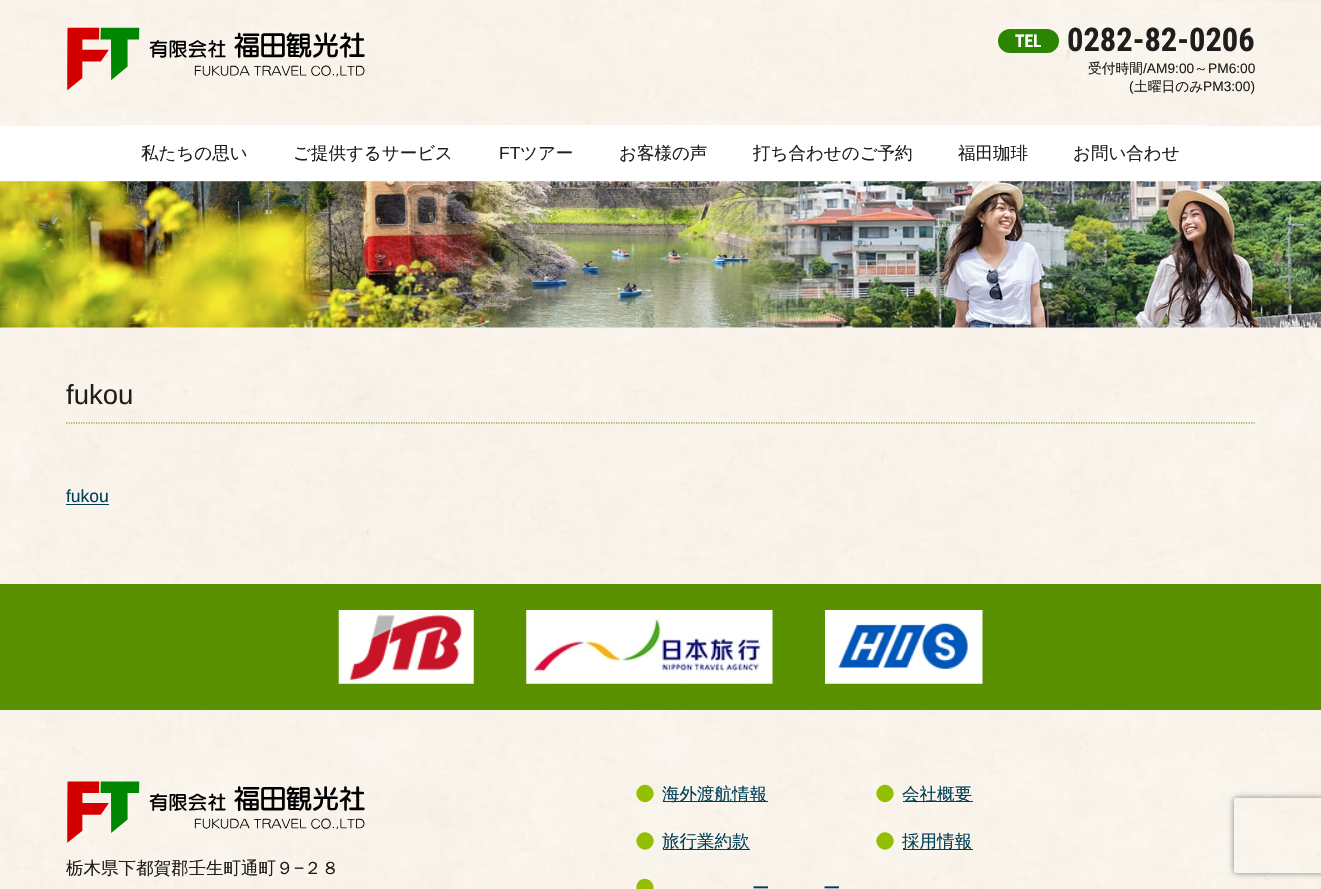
void draw(SkCanvas* canvas) {
	SkPaint fill;
	fill.setAntiAlias(true);
	auto makeFont = [&](const char* family, int weight, float size, bool italic = false) {
		SkFontStyle style(weight, SkFontStyle::kNormal_Width,
			italic ? SkFontStyle::kItalic_Slant : SkFontStyle::kUpright_Slant);
		SkFont result(fontMgr->matchFamilyStyle(family, style), size);
		result.setSubpixel(true);
		return result;
	};
	auto text = [&](const char* s, float x, float y, const SkFont& font) {
		canvas->drawString(s, x, y, font, fill);
	};
	auto box = [&](float l, float t, float r, float b) {
		canvas->drawRect(SkRect::MakeLTRB(l, t, r, b), fill);
	};
	auto roundBox = [&](float l, float t, float r, float b, float radius) {
		canvas->drawRoundRect(SkRect::MakeLTRB(l, t, r, b), radius, radius, fill);
	};
	auto picture = [&](const char* path, float l, float t, float r, float b) {
		auto image = SkImages::DeferredFromEncodedData(SkData::MakeFromFileName(path));
		canvas->drawImageRect(image, SkRect::MakeLTRB(l, t, r, b), SkSamplingOptions());
	};
	canvas->clear(0xFFFFFFFF);
	picture("image0.png", 0, 0, 1321, 889);
	picture("image1.png", 67, 27, 365, 91);
	fill.setColor(0xFF2B8500);
	roundBox(998, 29, 1059, 53, 12);
	fill.setColor(0xFFFFFFFF);
	box(0, 126, 1321, 181);
	{
		const SkColor colors[] = {0xFF4C950B, 0xFF4C950B, 0xFFFFFFFF, 0xFFFFFFFF};
		const float stops[] = {0, 0.33f, 0.67f, 1};
		const SkPoint ends[] = {{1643, 430}, {120, -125}};
		fill.setShader(SkGradientShader::MakeLinear(ends, colors, stops, 4, SkTileMode::kClamp));
		fill.setAlpha(255);
	}
	box(119, 125, 271, 126);
	{
		const SkColor colors[] = {0xFF4C950B, 0xFF4C950B, 0xFFFFFFFF, 0xFFFFFFFF};
		const float stops[] = {0, 0.33f, 0.67f, 1};
		const SkPoint ends[] = {{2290, 514}, {303, -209}};
		fill.setShader(SkGradientShader::MakeLinear(ends, colors, stops, 4, SkTileMode::kClamp));
		fill.setAlpha(255);
	}
	box(271, 125, 476, 126);
	{
		const SkColor colors[] = {0xFF4C950B, 0xFF4C950B, 0xFFFFFFFF, 0xFFFFFFFF};
		const float stops[] = {0, 0.33f, 0.67f, 1};
		const SkPoint ends[] = {{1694, 378}, {458, -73}};
		fill.setShader(SkGradientShader::MakeLinear(ends, colors, stops, 4, SkTileMode::kClamp));
		fill.setAlpha(255);
	}
	box(476, 125, 596, 126);
	{
		const SkColor colors[] = {0xFF4C950B, 0xFF4C950B, 0xFFFFFFFF, 0xFFFFFFFF};
		const float stops[] = {0, 0.33f, 0.67f, 1};
		const SkPoint ends[] = {{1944, 400}, {586, -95}};
		fill.setShader(SkGradientShader::MakeLinear(ends, colors, stops, 4, SkTileMode::kClamp));
		fill.setAlpha(255);
	}
	box(596, 125, 730, 126);
	{
		const SkColor colors[] = {0xFF4C950B, 0xFF4C950B, 0xFFFFFFFF, 0xFFFFFFFF};
		const float stops[] = {0, 0.33f, 0.67f, 1};
		const SkPoint ends[] = {{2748, 514}, {762, -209}};
		fill.setShader(SkGradientShader::MakeLinear(ends, colors, stops, 4, SkTileMode::kClamp));
		fill.setAlpha(255);
	}
	box(730, 125, 935, 126);
	{
		const SkColor colors[] = {0xFF4C950B, 0xFF4C950B, 0xFFFFFFFF, 0xFFFFFFFF};
		const float stops[] = {0, 0.33f, 0.67f, 1};
		const SkPoint ends[] = {{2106, 369}, {914, -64}};
		fill.setShader(SkGradientShader::MakeLinear(ends, colors, stops, 4, SkTileMode::kClamp));
		fill.setAlpha(255);
	}
	box(935, 125, 1050, 126);
	{
		const SkColor colors[] = {0xFF4C950B, 0xFF4C950B, 0xFFFFFFFF, 0xFFFFFFFF};
		const float stops[] = {0, 0.33f, 0.67f, 1};
		const SkPoint ends[] = {{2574, 430}, {1051, -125}};
		fill.setShader(SkGradientShader::MakeLinear(ends, colors, stops, 4, SkTileMode::kClamp));
		fill.setAlpha(255);
	}
	box(1050, 125, 1203, 126);
	picture("image2.png", 0, 181, 1321, 328);
	fill.setStyle(SkPaint::kStroke_Style);
	fill.setStrokeWidth(1.2f);
	fill.setShader(nullptr);
	fill.setColor(0xFF5A9100);
	fill.setPathEffect(SkDashPathEffect::Make({{1.25f, 1.25f}}, 0));
	canvas->drawPath(SkPathBuilder().moveTo(66, 423).lineTo(1255, 423).detach(), fill);
	fill.setPathEffect(nullptr);
	fill.setStyle(SkPaint::kFill_Style);
	fill.setColor(0xFF004057);
	box(66, 504, 109, 505);
	fill.setColor(0xFF5A9100);
	box(0, 584, 1321, 710);
	picture("image3.png", 338, 610, 474, 684);
	picture("image4.png", 526, 610, 773, 684);
	picture("image5.png", 825, 610, 983, 684);
	picture("image6.png", 67, 781, 365, 843);
	fill.setColor(0xFF93BF00);
	canvas->drawPath(SkPathBuilder().moveTo(639, 787.5f).cubicTo(647, 779.5f, 659, 791.5f, 651, 799.5f).cubicTo(643, 807.5f, 631, 795.5f, 639, 787.5f).close().detach(), fill);
	fill.setColor(0xFF004057);
	box(663, 801, 768, 802);
	fill.setColor(0xFF93BF00);
	canvas->drawPath(SkPathBuilder().moveTo(639, 835).cubicTo(647, 827, 659, 839, 651, 847).cubicTo(643, 855, 631, 843, 639, 835).close().detach(), fill);
	fill.setColor(0xFF004057);
	box(663, 849, 750, 850);
	fill.setColor(0xFF93BF00);
	canvas->drawPath(SkPathBuilder().moveTo(639, 881).cubicTo(647, 873.5f, 659, 885.5f, 651, 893).cubicTo(643, 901, 631, 889, 639, 881).close().detach(), fill);
	canvas->drawPath(SkPathBuilder().moveTo(879, 787.5f).cubicTo(887, 779.5f, 899, 791.5f, 891, 799.5f).cubicTo(883, 807.5f, 871, 795.5f, 879, 787.5f).close().detach(), fill);
	fill.setColor(0xFF004057);
	box(903, 801, 973, 802);
	fill.setColor(0xFF93BF00);
	canvas->drawPath(SkPathBuilder().moveTo(879, 835).cubicTo(887, 827, 899, 839, 891, 847).cubicTo(883, 855, 871, 843, 879, 835).close().detach(), fill);
	fill.setColor(0xFF004057);
	box(903, 849, 973, 850);
	canvas->save();
	canvas->clipPath(SkPathBuilder(SkPathFillType::kEvenOdd).moveTo(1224, 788).lineTo(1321, 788).lineTo(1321, 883).lineTo(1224, 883).close().moveTo(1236.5f, 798).lineTo(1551.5f, 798).cubicTo(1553, 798, 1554, 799, 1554, 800.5f).lineTo(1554, 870.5f).cubicTo(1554, 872, 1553, 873, 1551.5f, 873).lineTo(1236.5f, 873).cubicTo(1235, 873, 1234, 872, 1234, 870.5f).lineTo(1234, 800.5f).cubicTo(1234, 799, 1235, 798, 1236.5f, 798).close().detach(), true);
	fill.setColor(0xFF808080);
	fill.setMaskFilter(SkMaskFilter::MakeBlur(kNormal_SkBlurStyle, 3));
	canvas->drawRoundRect(SkRect::MakeLTRB(1234, 798, 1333, 873), 2.5f, 2.5f, fill);
	fill.setMaskFilter(nullptr);
	canvas->restore();
	auto font1 = makeFont("Roboto Condensed", 700, 17.5f);
	fill.setColor(0xFFFFFFFF);
	text("TEL", 1015, 47, font1);
	auto font2 = makeFont("Roboto Condensed", 700, 32.5f);
	fill.setColor(0xFF1E1E1E);
	text("0282-82-0206", 1067, 51, font2);
	auto font3 = makeFont("WenQuanYi Zen Hei", 500, 13.75f);
	text("受付時間", 1088, 73, font3);
	auto font4 = makeFont("Liberation Sans", 400, 13.75f);
	text("/AM9:00", 1143, 73, font4);
	text("～", 1194, 73, font3);
	text("PM6:00", 1208, 73, font4);
	text("(", 1129, 91, font4);
	text("土曜日のみ", 1134, 91, font3);
	text("PM3:00)", 1203, 91, font4);
	auto font5 = makeFont("WenQuanYi Zen Hei", 500, 17.5f);
	text("私たちの思い", 141, 159, font5);
	text("ご提供するサービス", 293, 159, font5);
	auto font6 = makeFont("Liberation Sans", 400, 17.5f);
	text("FT", 499, 159, font6);
	text("ツアー", 520, 159, font5);
	text("お客様の声", 619, 159, font5);
	text("打ち合わせのご予約", 753, 159, font5);
	text("福田珈琲", 958, 159, font5);
	text("お問い合わせ", 1073, 159, font5);
	auto font7 = makeFont("Liberation Sans", 400, 27.5f);
	text("fukou", 66, 404, font7);
	fill.setColor(0xFF004057);
	text("fukou", 66, 502, font6);
	fill.setColor(0xFF1E1E1E);
	text("栃木県下都賀郡壬生町通町９", 66, 874, font5);
	text("−", 294, 874, font6);
	text("２８", 304, 874, font5);
	fill.setColor(0xFF004057);
	text("海外渡航情報", 662, 800, font5);
	text("旅行業約款", 662, 847, font5);
	text("ー", 752, 894, font5);
	text("ー", 823, 894, font5);
	text("会社概要", 902, 800, font5);
	text("採用情報", 902, 847, font5);
}
